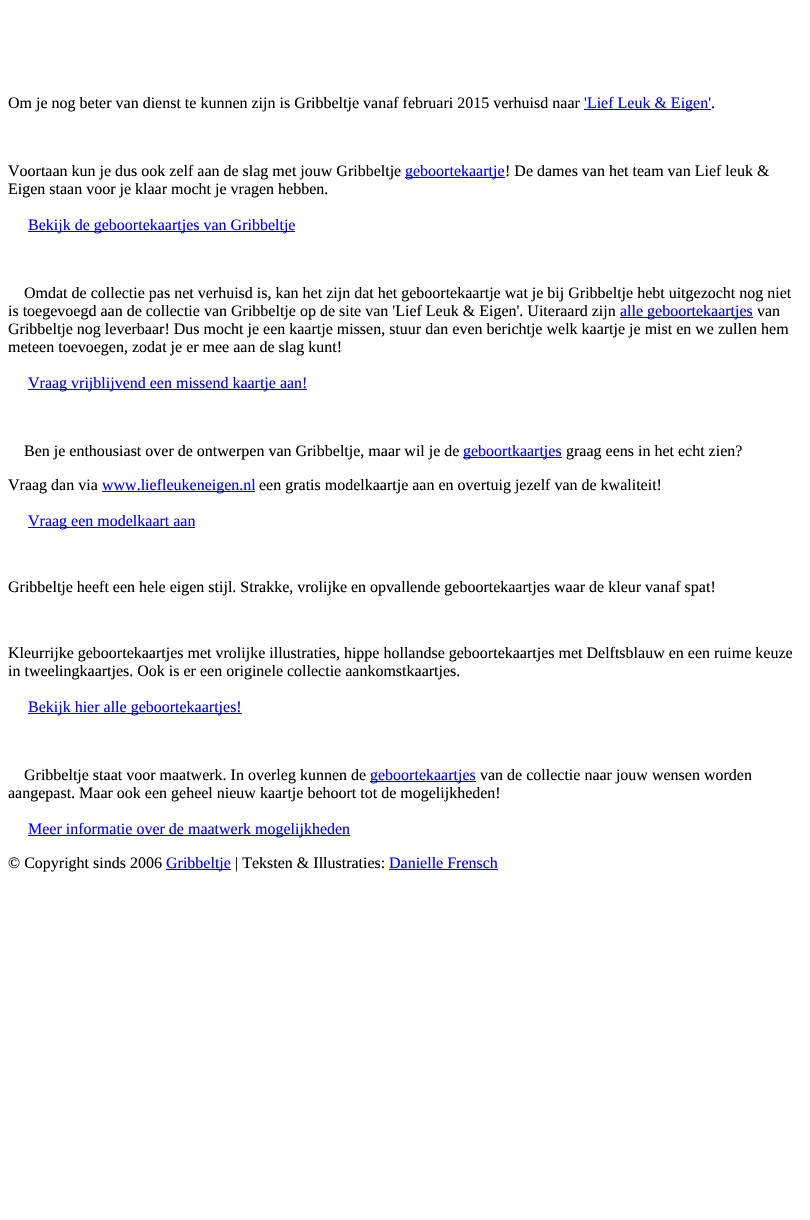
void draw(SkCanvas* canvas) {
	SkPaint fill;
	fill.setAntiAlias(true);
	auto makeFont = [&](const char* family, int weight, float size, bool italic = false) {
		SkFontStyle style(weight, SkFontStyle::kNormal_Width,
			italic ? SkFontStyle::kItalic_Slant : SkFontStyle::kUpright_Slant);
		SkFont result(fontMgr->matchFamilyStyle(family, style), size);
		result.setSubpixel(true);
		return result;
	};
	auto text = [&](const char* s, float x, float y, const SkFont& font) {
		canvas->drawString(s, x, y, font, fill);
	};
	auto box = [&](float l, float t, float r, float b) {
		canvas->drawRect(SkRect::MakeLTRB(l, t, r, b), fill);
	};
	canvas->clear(0xFFFFFFFF);
	fill.setColor(0xFF0000EE);
	box(584, 109, 711, 110);
	box(405, 177, 505, 178);
	box(28, 231, 295, 232);
	box(620, 317, 753, 318);
	box(28, 389, 307, 390);
	box(463, 457, 562, 458);
	box(102, 491, 255, 492);
	box(28, 527, 195, 528);
	box(28, 713, 242, 714);
	box(370, 781, 476, 782);
	box(28, 835, 350, 836);
	box(166, 869, 231, 870);
	box(389, 869, 498, 870);
	auto font1 = makeFont("Liberation Serif", 400, 16);
	fill.setColor(0xFF000000);
	text("Om je nog beter van dienst te kunnen zijn is Gribbeltje vanaf februari 2015 verhuisd naar", 8, 108, font1);
	fill.setColor(0xFF0000EE);
	text("'Lief Leuk & Eigen'", 584, 108, font1);
	fill.setColor(0xFF000000);
	text(".", 711, 108, font1);
	text("Voortaan kun je dus ook zelf aan de slag met jouw Gribbeltje", 8, 176, font1);
	fill.setColor(0xFF0000EE);
	text("geboortekaartje", 405, 176, font1);
	fill.setColor(0xFF000000);
	text("! De dames van het team van Lief leuk &", 505, 176, font1);
	text("Eigen staan voor je klaar mocht je vragen hebben.", 8, 194, font1);
	fill.setColor(0xFF0000EE);
	text("Bekijk de geboortekaartjes van Gribbeltje", 28, 230, font1);
	fill.setColor(0xFF000000);
	text("Omdat de collectie pas net verhuisd is, kan het zijn dat het geboortekaartje wat je bij Gribbeltje hebt uitgezocht nog niet", 24, 298, font1);
	text("is toegevoegd aan de collectie van Gribbeltje op de site van 'Lief Leuk & Eigen'. Uiteraard zijn", 8, 316, font1);
	fill.setColor(0xFF0000EE);
	text("alle geboortekaartjes", 620, 316, font1);
	fill.setColor(0xFF000000);
	text("van", 757, 316, font1);
	text("Gribbeltje nog leverbaar! Dus mocht je een kaartje missen, stuur dan even berichtje welk kaartje je mist en we zullen hem", 8, 334, font1);
	text("meteen toevoegen, zodat je er mee aan de slag kunt!", 8, 352, font1);
	fill.setColor(0xFF0000EE);
	text("Vraag vrijblijvend een missend kaartje aan!", 28, 388, font1);
	fill.setColor(0xFF000000);
	text("Ben je enthousiast over de ontwerpen van Gribbeltje, maar wil je de", 24, 456, font1);
	fill.setColor(0xFF0000EE);
	text("geboortkaartjes", 463, 456, font1);
	fill.setColor(0xFF000000);
	text("graag eens in het echt zien?", 566, 456, font1);
	text("Vraag dan via", 8, 490, font1);
	fill.setColor(0xFF0000EE);
	text("www.liefleukeneigen.nl", 102, 490, font1);
	fill.setColor(0xFF000000);
	text("een gratis modelkaartje aan en overtuig jezelf van de kwaliteit!", 259, 490, font1);
	fill.setColor(0xFF0000EE);
	text("Vraag een modelkaart aan", 28, 526, font1);
	fill.setColor(0xFF000000);
	text("Gribbeltje heeft een hele eigen stijl. Strakke, vrolijke en opvallende geboortekaartjes waar de kleur vanaf spat!", 8, 592, font1);
	text("Kleurrijke geboortekaartjes met vrolijke illustraties, hippe hollandse geboortekaartjes met Delftsblauw en een ruime keuze", 8, 658, font1);
	text("in tweelingkaartjes. Ook is er een originele collectie aankomstkaartjes.", 8, 676, font1);
	fill.setColor(0xFF0000EE);
	text("Bekijk hier alle geboortekaartjes!", 28, 712, font1);
	fill.setColor(0xFF000000);
	text("Gribbeltje staat voor maatwerk. In overleg kunnen de", 24, 780, font1);
	fill.setColor(0xFF0000EE);
	text("geboortekaartjes", 370, 780, font1);
	fill.setColor(0xFF000000);
	text("van de collectie naar jouw wensen worden", 480, 780, font1);
	text("aangepast. Maar ook een geheel nieuw kaartje behoort tot de mogelijkheden!", 8, 798, font1);
	fill.setColor(0xFF0000EE);
	text("Meer informatie over de maatwerk mogelijkheden", 28, 834, font1);
	fill.setColor(0xFF000000);
	text("© Copyright sinds 2006", 8, 868, font1);
	fill.setColor(0xFF0000EE);
	text("Gribbeltje", 166, 868, font1);
	fill.setColor(0xFF000000);
	text("| Teksten & Illustraties:", 235, 868, font1);
	fill.setColor(0xFF0000EE);
	text("Danielle Frensch", 389, 868, font1);
}
